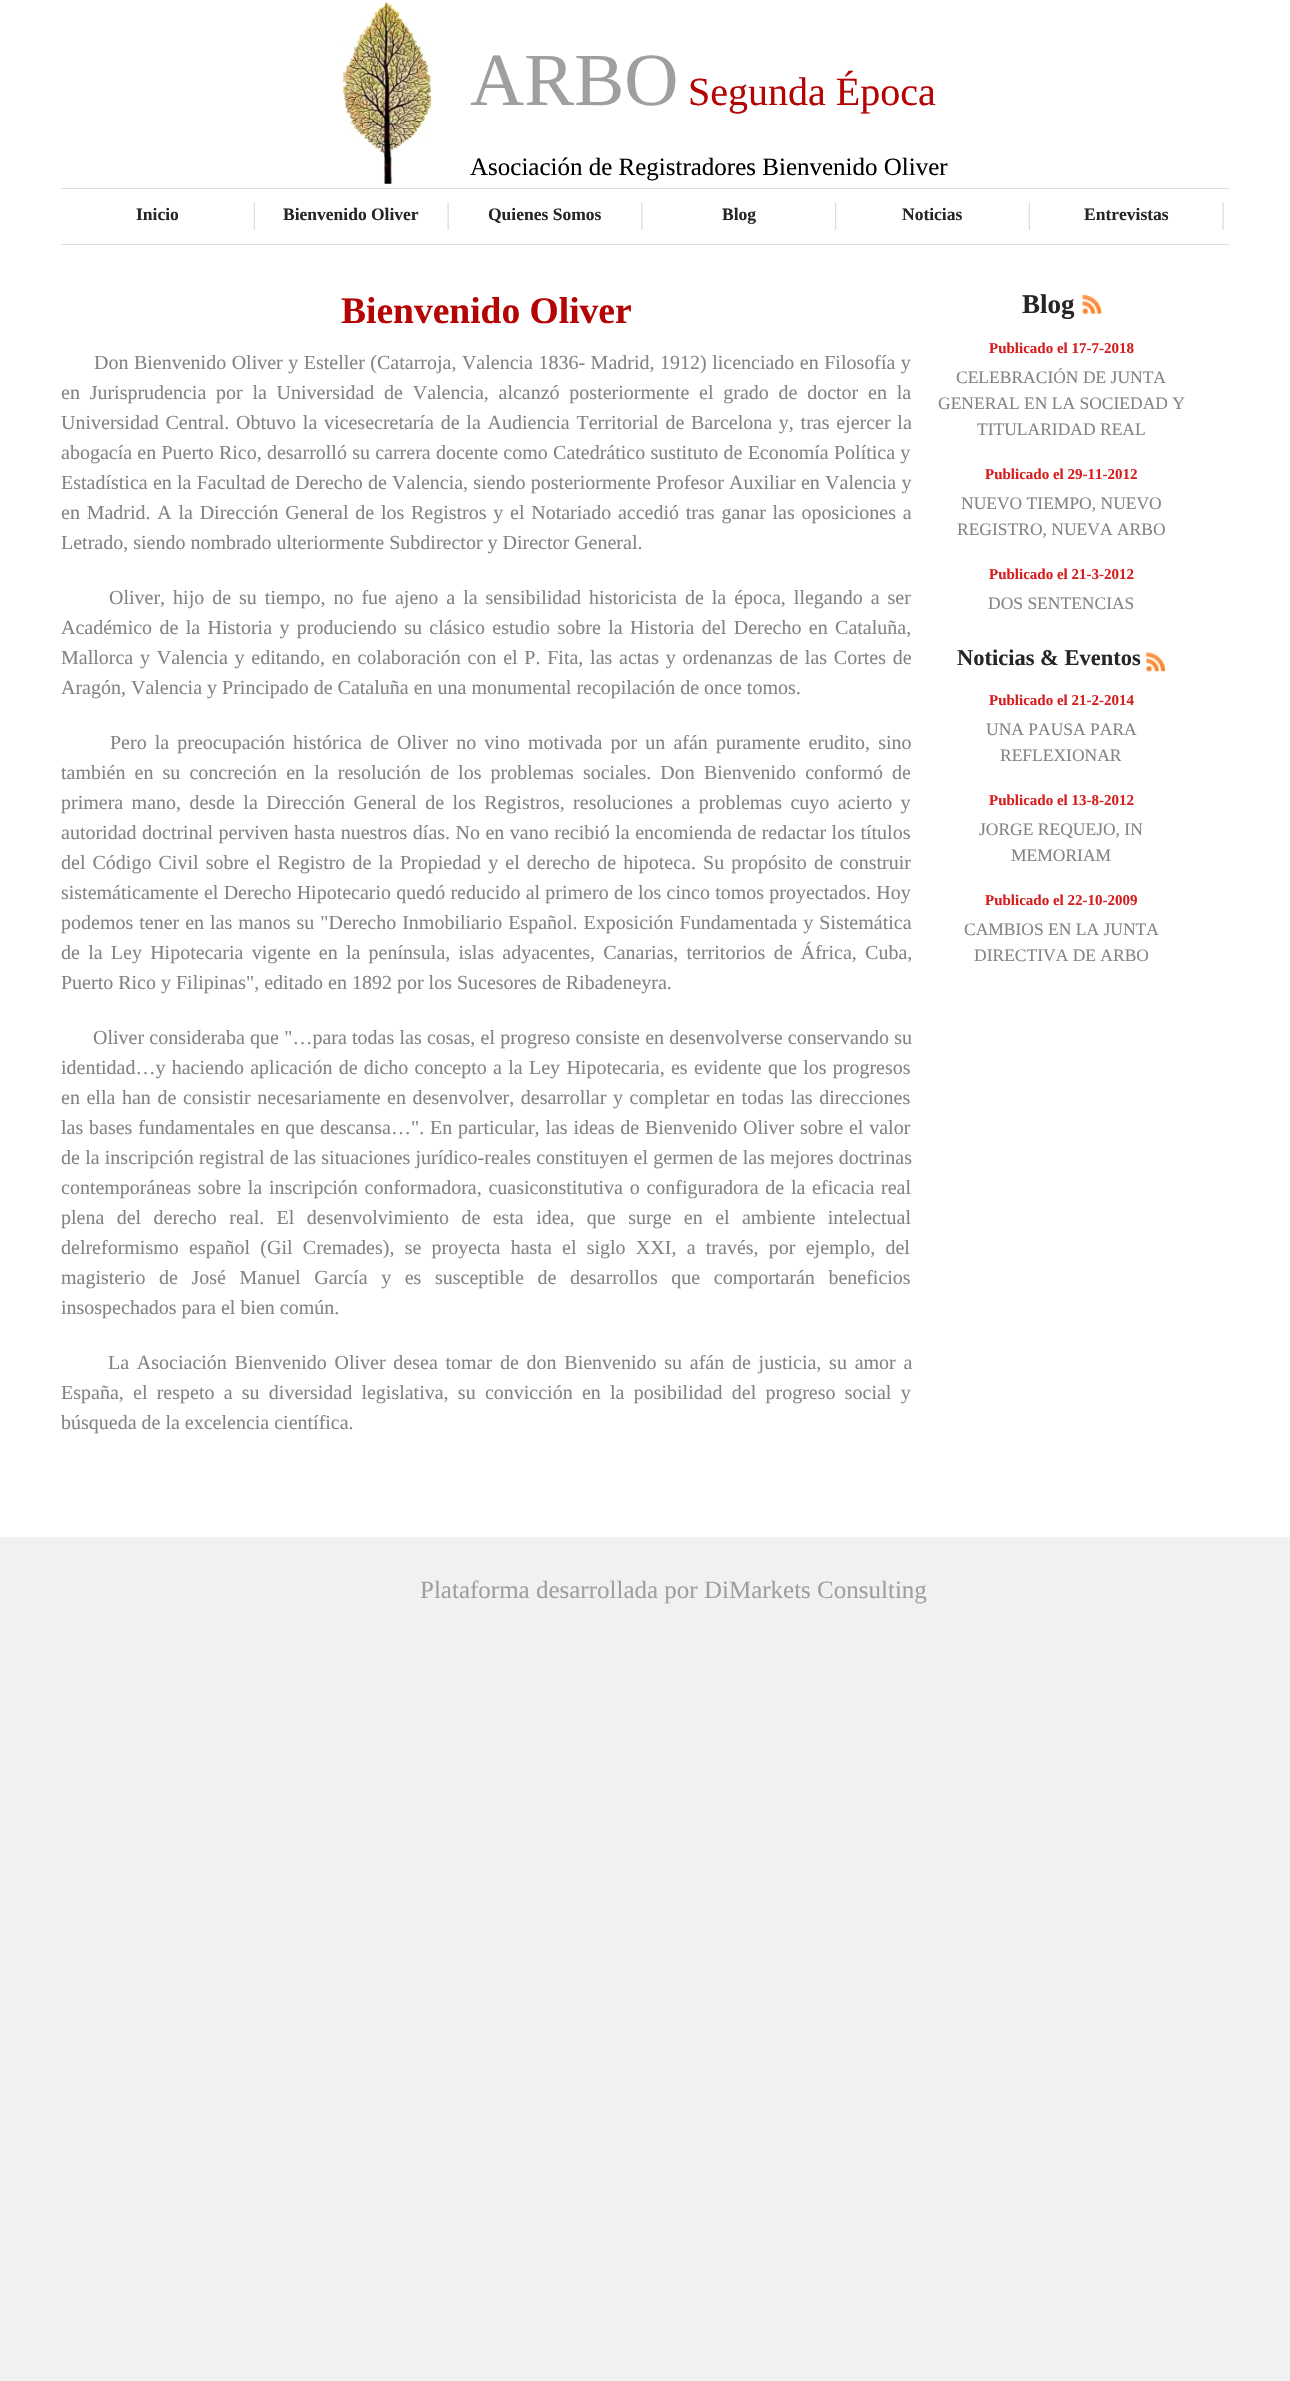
void draw(SkCanvas* canvas) {
	SkPaint fill;
	fill.setAntiAlias(true);
	auto makeFont = [&](const char* family, int weight, float size, bool italic = false) {
		SkFontStyle style(weight, SkFontStyle::kNormal_Width,
			italic ? SkFontStyle::kItalic_Slant : SkFontStyle::kUpright_Slant);
		SkFont result(fontMgr->matchFamilyStyle(family, style), size);
		result.setSubpixel(true);
		return result;
	};
	auto text = [&](const char* s, float x, float y, const SkFont& font) {
		canvas->drawString(s, x, y, font, fill);
	};
	auto spacedText = [&](const char* s, float x, float y, const SkFont& font, const SkPaint& ink, float letter, float word) {
		std::vector<SkGlyphID> glyphs(font.countText(s, strlen(s), SkTextEncoding::kUTF8));
		std::vector<float> xs(glyphs.size());
		font.textToGlyphs(s, strlen(s), SkTextEncoding::kUTF8, glyphs);
		font.getXPos(glyphs, xs, x);
		float extra = 0;
		for (size_t i = 0; i < glyphs.size(); i++) {
			xs[i] += extra;
			extra += letter + word * (glyphs[i] == font.unicharToGlyph(' '));
		}
		canvas->drawTextBlob(SkTextBlob::MakeFromPosHGlyphs(glyphs, xs, y, font), 0, 0, ink);
	};
	auto box = [&](float l, float t, float r, float b) {
		canvas->drawRect(SkRect::MakeLTRB(l, t, r, b), fill);
	};
	auto picture = [&](const char* path, float l, float t, float r, float b) {
		auto image = SkImages::DeferredFromEncodedData(SkData::MakeFromFileName(path));
		canvas->drawImageRect(image, SkRect::MakeLTRB(l, t, r, b), SkSamplingOptions());
	};
	canvas->clear(0xFFF1F1F1);
	fill.setColor(0xFFFFFFFF);
	box(0, 0, 1290, 1537);
	picture("image0.png", 342, 2, 432, 184);
	fill.setColor(0xFFDCDCDC);
	box(61, 188, 1229, 189);
	box(61, 244, 1229, 245);
	picture("image1.png", 253, 202, 255, 230);
	picture("image2.png", 447, 202, 449, 230);
	picture("image3.png", 641, 202, 643, 230);
	picture("image4.png", 835, 202, 837, 230);
	picture("image1.png", 1028, 202, 1030, 230);
	picture("image2.png", 1222, 202, 1224, 230);
	picture("image5.png", 1082, 295, 1102, 314);
	picture("image6.png", 1146, 652, 1165, 672);
	auto font1 = makeFont("Liberation Serif", 400, 75);
	fill.setColor(0xFF9F9F9F);
	text("ARBO", 470, 105, font1);
	auto font2 = makeFont("Liberation Serif", 400, 40);
	fill.setColor(0xFFB40404);
	text("Segunda Época", 688, 105, font2);
	auto font3 = makeFont("Liberation Serif", 400, 25);
	fill.setColor(0xFF000000);
	text("Asociación de Registradores Bienvenido Oliver", 470, 175, font3);
	auto font4 = makeFont("Liberation Serif", 700, 17.5f);
	fill.setColor(0xFF262626);
	text("Inicio", 136, 220, font4);
	text("Bienvenido Oliver", 283, 220, font4);
	text("Quienes Somos", 488, 220, font4);
	text("Blog", 722, 220, font4);
	text("Noticias", 902, 220, font4);
	text("Entrevistas", 1084, 220, font4);
	auto font5 = makeFont("Liberation Serif", 700, 37.5f);
	fill.setColor(0xFFB40404);
	text("Bienvenido Oliver", 341, 323, font5);
	auto font6 = makeFont("Liberation Serif", 400, 20);
	fill.setColor(0xFF848484);
	spacedText("Don Bienvenido Oliver y Esteller (Catarroja, Valencia 1836- Madrid, 1912) licenciado en Filosofía y", 94, 369, font6, fill, 0, 0.5f);
	spacedText("en Jurisprudencia por la Universidad de Valencia, alcanzó posteriormente el grado de doctor en la", 61, 399, font6, fill, 0, 4.75f);
	spacedText("Universidad Central. Obtuvo la vicesecretaría de la Audiencia Territorial de Barcelona y, tras ejercer la", 61, 429, font6, fill, 0, 1.75f);
	spacedText("abogacía en Puerto Rico, desarrolló su carrera docente como Catedrático sustituto de Economía Política y", 61, 459, font6, fill, 0, 0.25f);
	spacedText("Estadística en la Facultad de Derecho de Valencia, siendo posteriormente Profesor Auxiliar en Valencia y", 61, 489, font6, fill, 0, 0.25f);
	spacedText("en Madrid. A la Dirección General de los Registros y el Notariado accedió tras ganar las oposiciones a", 61, 519, font6, fill, 0, 1.75f);
	text("Letrado, siendo nombrado ulteriormente Subdirector y Director General.", 61, 549, font6);
	spacedText("Oliver, hijo de su tiempo, no fue ajeno a la sensibilidad historicista de la época, llegando a ser", 109, 604, font6, fill, 0, 3);
	spacedText("Académico de la Historia y produciendo su clásico estudio sobre la Historia del Derecho en Cataluña,", 61, 634, font6, fill, 0, 2.4f);
	spacedText("Mallorca y Valencia y editando, en colaboración con el P. Fita, las actas y ordenanzas de las Cortes de", 61, 664, font6, fill, 0, 1.75f);
	text("Aragón, Valencia y Principado de Cataluña en una monumental recopilación de once tomos.", 61, 694, font6);
	spacedText("Pero la preocupación histórica de Oliver no vino motivada por un afán puramente erudito, sino", 110, 749, font6, fill, 0, 3.1f);
	spacedText("también en su concreción en la resolución de los problemas sociales. Don Bienvenido conformó de", 61, 779, font6, fill, 0, 4.1f);
	spacedText("primera mano, desde la Dirección General de los Registros, resoluciones a problemas cuyo acierto y", 61, 809, font6, fill, 0, 3.4f);
	spacedText("autoridad doctrinal perviven hasta nuestros días. No en vano recibió la encomienda de redactar los títulos", 61, 839, font6, fill, 0, 0.5f);
	spacedText("del Código Civil sobre el Registro de la Propiedad y el derecho de hipoteca. Su propósito de construir", 61, 869, font6, fill, 0, 2.1f);
	spacedText("sistemáticamente el Derecho Hipotecario quedó reducido al primero de los cinco tomos proyectados. Hoy", 61, 899, font6, fill, 0, 0.25f);
	spacedText("podemos tener en las manos su \"Derecho Inmobiliario Español. Exposición Fundamentada y Sistemática", 61, 929, font6, fill, 0, 1);
	spacedText("de la Ley Hipotecaria vigente en la península, islas adyacentes, Canarias, territorios de África, Cuba,", 61, 959, font6, fill, 0, 3.25f);
	text("Puerto Rico y Filipinas\", editado en 1892 por los Sucesores de Ribadeneyra.", 61, 989, font6);
	spacedText("Oliver consideraba que \"…para todas las cosas, el progreso consiste en desenvolverse conservando su", 93, 1044, font6, fill, 0, 0.25f);
	spacedText("identidad…y haciendo aplicación de dicho concepto a la Ley Hipotecaria, es evidente que los progresos", 61, 1074, font6, fill, 0, 1.3f);
	spacedText("en ella han de consistir necesariamente en desenvolver, desarrollar y completar en todas las direcciones", 61, 1104, font6, fill, 0, 1.6f);
	spacedText("las bases fundamentales en que descansa…\". En particular, las ideas de Bienvenido Oliver sobre el valor", 61, 1134, font6, fill, 0, 0.8f);
	spacedText("de la inscripción registral de las situaciones jurídico-reales constituyen el germen de las mejores doctrinas", 61, 1164, font6, fill, 0, 0.25f);
	spacedText("contemporáneas sobre la inscripción conformadora, cuasiconstitutiva o configuradora de la eficacia real", 61, 1194, font6, fill, 0, 1.75f);
	spacedText("plena del derecho real. El desenvolvimiento de esta idea, que surge en el ambiente intelectual", 61, 1224, font6, fill, 0, 7.4f);
	spacedText("delreformismo español (Gil Cremades), se proyecta hasta el siglo XXI, a través, por ejemplo, del", 61, 1254, font6, fill, 0, 5.25f);
	spacedText("magisterio de José Manuel García y es susceptible de desarrollos que comportarán beneficios", 61, 1284, font6, fill, 0, 8.6f);
	text("insospechados para el bien común.", 61, 1314, font6);
	spacedText("La Asociación Bienvenido Oliver desea tomar de don Bienvenido su afán de justicia, su amor a", 108, 1369, font6, fill, 0, 2.75f);
	spacedText("España, el respeto a su diversidad legislativa, su convicción en la posibilidad del progreso social y", 61, 1399, font6, fill, 0, 4.25f);
	text("búsqueda de la excelencia científica.", 61, 1429, font6);
	auto font7 = makeFont("Liberation Serif", 700, 27);
	fill.setColor(0xFF262626);
	text("Blog", 1022, 313, font7);
	auto font8 = makeFont("Liberation Serif", 700, 15);
	fill.setColor(0xFFD61F1F);
	text("Publicado el 17-7-2018", 989, 353, font8);
	auto font9 = makeFont("Liberation Serif", 400, 17.5f);
	fill.setColor(0xFF848484);
	text("CELEBRACIÓN DE JUNTA", 956, 383, font9);
	text("GENERAL EN LA SOCIEDAD Y", 938, 409, font9);
	text("TITULARIDAD REAL", 977, 435, font9);
	fill.setColor(0xFFD61F1F);
	text("Publicado el 29-11-2012", 985, 479, font8);
	fill.setColor(0xFF848484);
	text("NUEVO TIEMPO, NUEVO", 961, 509, font9);
	text("REGISTRO, NUEVA ARBO", 957, 535, font9);
	fill.setColor(0xFFD61F1F);
	text("Publicado el 21-3-2012", 989, 579, font8);
	fill.setColor(0xFF848484);
	text("DOS SENTENCIAS", 988, 609, font9);
	auto font10 = makeFont("Liberation Serif", 700, 22.5f);
	fill.setColor(0xFF262626);
	text("Noticias & Eventos", 957, 665, font10);
	fill.setColor(0xFFD61F1F);
	text("Publicado el 21-2-2014", 989, 705, font8);
	fill.setColor(0xFF848484);
	text("UNA PAUSA PARA", 986, 735, font9);
	text("REFLEXIONAR", 1000, 761, font9);
	fill.setColor(0xFFD61F1F);
	text("Publicado el 13-8-2012", 989, 805, font8);
	fill.setColor(0xFF848484);
	text("JORGE REQUEJO, IN", 979, 835, font9);
	text("MEMORIAM", 1011, 861, font9);
	fill.setColor(0xFFD61F1F);
	text("Publicado el 22-10-2009", 985, 905, font8);
	fill.setColor(0xFF848484);
	text("CAMBIOS EN LA JUNTA", 964, 935, font9);
	text("DIRECTIVA DE ARBO", 974, 961, font9);
	fill.setColor(0xFF9F9F9F);
	text("Plataforma desarrollada por DiMarkets Consulting", 420, 1598, font3);
}
